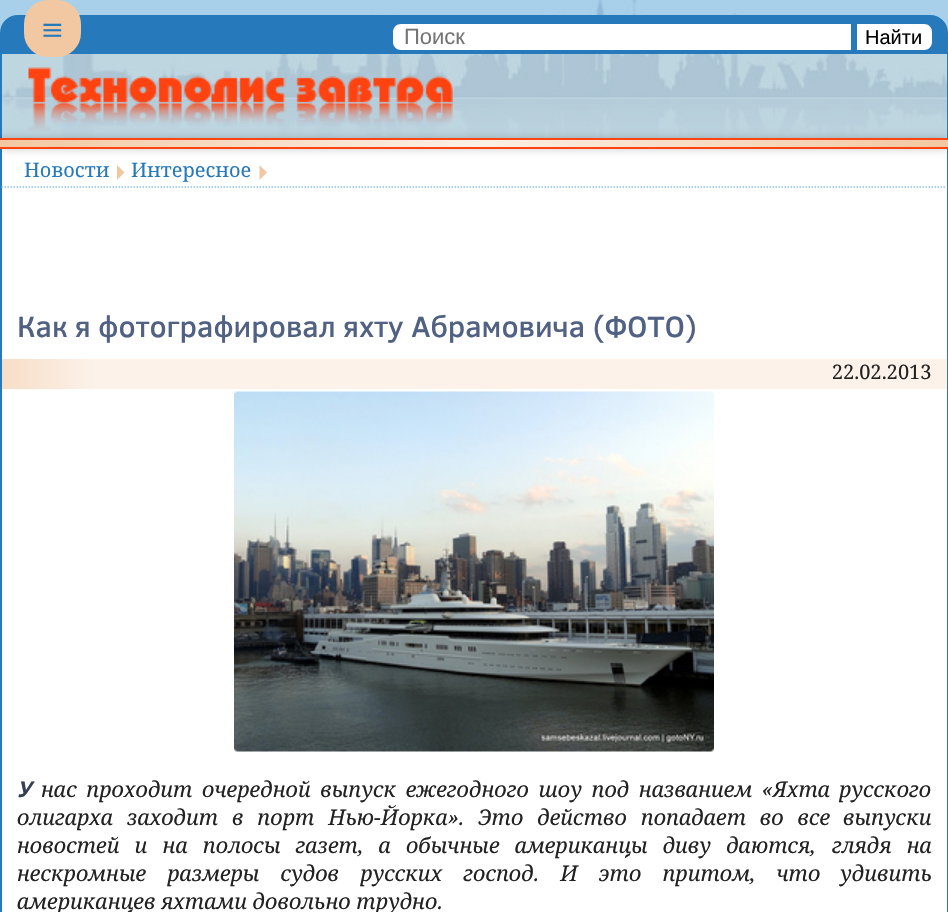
void draw(SkCanvas* canvas) {
	SkPaint fill;
	fill.setAntiAlias(true);
	auto makeFont = [&](const char* family, int weight, float size, bool italic = false) {
		SkFontStyle style(weight, SkFontStyle::kNormal_Width,
			italic ? SkFontStyle::kItalic_Slant : SkFontStyle::kUpright_Slant);
		SkFont result(fontMgr->matchFamilyStyle(family, style), size);
		result.setSubpixel(true);
		return result;
	};
	auto text = [&](const char* s, float x, float y, const SkFont& font) {
		canvas->drawString(s, x, y, font, fill);
	};
	auto spacedText = [&](const char* s, float x, float y, const SkFont& font, const SkPaint& ink, float letter, float word) {
		std::vector<SkGlyphID> glyphs(font.countText(s, strlen(s), SkTextEncoding::kUTF8));
		std::vector<float> xs(glyphs.size());
		font.textToGlyphs(s, strlen(s), SkTextEncoding::kUTF8, glyphs);
		font.getXPos(glyphs, xs, x);
		float extra = 0;
		for (size_t i = 0; i < glyphs.size(); i++) {
			xs[i] += extra;
			extra += letter + word * (glyphs[i] == font.unicharToGlyph(' '));
		}
		canvas->drawTextBlob(SkTextBlob::MakeFromPosHGlyphs(glyphs, xs, y, font), 0, 0, ink);
	};
	auto box = [&](float l, float t, float r, float b) {
		canvas->drawRect(SkRect::MakeLTRB(l, t, r, b), fill);
	};
	auto roundBox = [&](float l, float t, float r, float b, float radius) {
		canvas->drawRoundRect(SkRect::MakeLTRB(l, t, r, b), radius, radius, fill);
	};
	auto picture = [&](const char* path, float l, float t, float r, float b) {
		auto image = SkImages::DeferredFromEncodedData(SkData::MakeFromFileName(path));
		canvas->drawImageRect(image, SkRect::MakeLTRB(l, t, r, b), SkSamplingOptions());
	};
	canvas->clear(0xFFFFFFFF);
	picture("image0.png", 0, 0, 948, 138);
	fill.setColor(0x40FFE7C3);
	box(2, 54, 947, 138);
	fill.setColor(0xFF2679BA);
	box(947, 54, 948, 138);
	box(0, 54, 2, 138);
	picture("image1.png", 28, 67, 453, 132);
	box(947, 149, 948, 912);
	box(0, 149, 2, 912);
	fill.setColor(0x33000000);
	fill.setMaskFilter(SkMaskFilter::MakeBlur(kNormal_SkBlurStyle, 4));
	canvas->drawRect(SkRect::MakeLTRB(0, 138, 948, 149), fill);
	fill.setMaskFilter(nullptr);
	{
		const SkColor colors[] = {0xFFF2C8A2, 0xFFFBF0E5, 0xFFF2C8A2};
		const float stops[] = {0, 0.5f, 1};
		const SkPoint ends[] = {{0, 143}, {948, 143}};
		fill.setShader(SkGradientShader::MakeLinear(ends, colors, stops, 3, SkTileMode::kClamp));
		fill.setAlpha(255);
	}
	box(0, 140, 948, 147);
	fill.setShader(nullptr);
	fill.setColor(0xFFFF4310);
	box(0, 138, 948, 140);
	box(0, 147, 948, 149);
	fill.setColor(0xFF2679BA);
	canvas->drawPath(SkPathBuilder().moveTo(18, 16).lineTo(930, 16).cubicTo(939.5f, 16, 947, 23.5f, 947, 33).lineTo(947, 53).lineTo(1, 53).lineTo(1, 33).cubicTo(1, 23.5f, 8.5f, 16, 18, 16).close().detach(), fill);
	fill.setStyle(SkPaint::kStroke_Style);
	fill.setStrokeWidth(2);
	canvas->drawPath(SkPathBuilder().moveTo(18, 16).lineTo(930, 16).cubicTo(939.5f, 16, 947, 23.5f, 947, 33).lineTo(947, 53).lineTo(1, 53).lineTo(1, 33).cubicTo(1, 23.5f, 8.5f, 16, 18, 16).close().detach(), fill);
	fill.setStyle(SkPaint::kFill_Style);
	fill.setColor(0xFFF2C8A2);
	roundBox(24, 0, 81, 57, 24);
	fill.setColor(0xFFFFFFFF);
	canvas->drawPath(SkPathBuilder().moveTo(401, 24).lineTo(851, 24).lineTo(851, 50).lineTo(401, 50).cubicTo(396.5f, 50, 393, 46.5f, 393, 42).lineTo(393, 32).cubicTo(393, 27.5f, 396.5f, 24, 401, 24).close().detach(), fill);
	canvas->drawPath(SkPathBuilder().moveTo(857, 24).lineTo(924, 24).cubicTo(928.5f, 24, 932, 27.5f, 932, 32).lineTo(932, 42).cubicTo(932, 46.5f, 928.5f, 50, 924, 50).lineTo(857, 50).close().detach(), fill);
	fill.setStyle(SkPaint::kStroke_Style);
	fill.setStrokeWidth(1.5f);
	fill.setColor(0xFF91C2E8);
	fill.setPathEffect(SkDashPathEffect::Make({{1.5f, 1.5f}}, 0));
	canvas->drawPath(SkPathBuilder().moveTo(1.5f, 187).lineTo(946.5f, 187).detach(), fill);
	fill.setPathEffect(nullptr);
	fill.setStyle(SkPaint::kFill_Style);
	fill.setColor(0xFFF2C8A2);
	canvas->drawPath(SkPathBuilder().moveTo(117, 180).lineTo(117, 165).lineTo(124.5f, 172.5f).close().detach(), fill);
	canvas->drawPath(SkPathBuilder().moveTo(259.5f, 180).lineTo(259.5f, 165).lineTo(267, 172.5f).close().detach(), fill);
	{
		const SkColor colors[] = {0xFFF7DDC6, 0xFFFCF2EA};
		const float stops[] = {0, 0.1f};
		const SkPoint ends[] = {{1.5f, 374}, {947, 373}};
		fill.setShader(SkGradientShader::MakeLinear(ends, colors, stops, 2, SkTileMode::kClamp));
		fill.setAlpha(255);
	}
	box(2, 359, 947, 389);
	picture("image2.png", 234, 391, 714, 752);
	auto font1 = makeFont("Caladea", 400, 41);
	fill.setShader(nullptr);
	fill.setColor(0xFF2679BA);
	text("≡", 41, 42, font1);
	auto font2 = makeFont("Liberation Sans", 400, 22);
	fill.setColor(0xFF757575);
	text("Поиск", 404, 44, font2);
	auto font3 = makeFont("Liberation Sans", 400, 20);
	fill.setColor(0xFF000000);
	text("Найти", 865, 44, font3);
	auto font4 = makeFont("Noto Serif", 400, 20);
	fill.setColor(0xFF2679BA);
	text("Новости", 24, 177, font4);
	text("Интересное", 131, 177, font4);
	auto font5 = makeFont("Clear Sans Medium", 500, 30);
	fill.setColor(0xFF516183);
	text("Как я фотографировал яхту Абрамовича (ФОТО)", 17, 337, font5);
	fill.setColor(0xFF222222);
	text("22.02.2013", 832, 379, font4);
	auto font6 = makeFont("Noto Sans", 700, 21.6f, true);
	fill.setColor(0xFF343E54);
	text("У", 17, 797, font6);
	auto font7 = makeFont("Noto Serif", 400, 21.6f, true);
	fill.setColor(0xFF222222);
	spacedText("нас проходит очередной выпуск ежегодного шоу под названием «Яхта", 41, 797, font7, fill, 0, 4);
	text("русского", 839, 797, font7);
	spacedText("олигарха заходит в порт Нью-Йорка». Это действо попадает во все", 17, 825, font7, fill, 0, 8.25f);
	text("выпуски", 843, 825, font7);
	spacedText("новостей и на полосы газет, а обычные американцы диву даются,", 17, 853, font7, fill, 0, 9.5f);
	spacedText("глядя на", 832, 853, font7, fill, 0, 9.5f);
	spacedText("нескромные размеры судов русских господ. И это притом, что", 17, 881, font7, fill, 0, 15.5f);
	text("удивить", 840, 881, font7);
	text("американцев яхтами довольно трудно.", 17, 909, font7);
}
